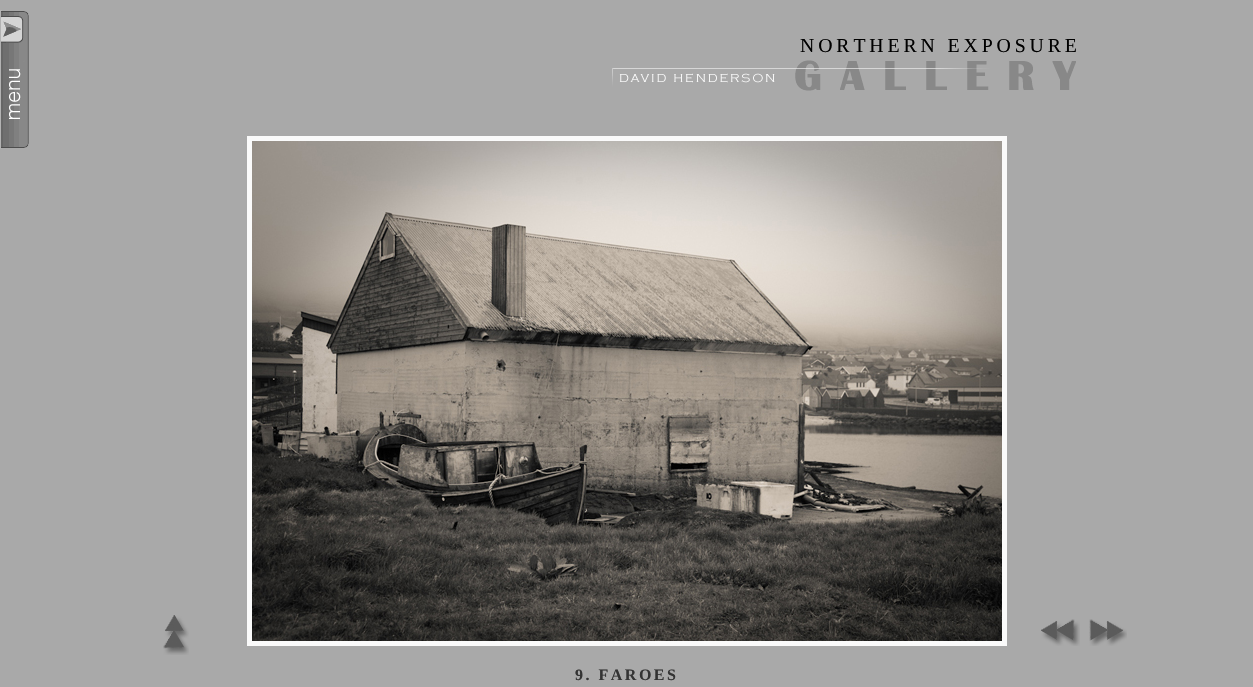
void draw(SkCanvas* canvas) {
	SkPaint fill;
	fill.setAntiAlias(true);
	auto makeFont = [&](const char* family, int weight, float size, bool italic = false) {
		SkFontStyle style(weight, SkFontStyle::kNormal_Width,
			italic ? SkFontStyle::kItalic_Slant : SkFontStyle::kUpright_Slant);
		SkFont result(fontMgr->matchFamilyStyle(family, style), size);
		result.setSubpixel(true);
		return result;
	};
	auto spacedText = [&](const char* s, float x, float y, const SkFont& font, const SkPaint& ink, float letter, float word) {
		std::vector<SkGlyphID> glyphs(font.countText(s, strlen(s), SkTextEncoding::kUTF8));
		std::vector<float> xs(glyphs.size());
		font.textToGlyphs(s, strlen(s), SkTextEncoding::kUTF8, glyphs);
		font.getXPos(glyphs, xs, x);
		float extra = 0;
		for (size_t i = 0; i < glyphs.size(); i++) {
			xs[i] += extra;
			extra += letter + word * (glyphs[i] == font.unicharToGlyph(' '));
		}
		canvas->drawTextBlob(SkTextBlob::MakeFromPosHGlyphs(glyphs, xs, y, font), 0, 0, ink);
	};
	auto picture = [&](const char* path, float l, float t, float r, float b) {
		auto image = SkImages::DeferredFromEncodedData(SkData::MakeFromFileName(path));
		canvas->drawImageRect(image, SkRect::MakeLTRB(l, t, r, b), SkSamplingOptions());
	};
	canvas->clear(0xFFA9A9A9);
	fill.setColor(0xFFB3B3B3);
	canvas->drawPath(SkPathBuilder().moveTo(0, 10).lineTo(2, 10).lineTo(2, 147).cubicTo(2, 148, 1, 149, 0, 149).close().detach(), fill);
	picture("image0.png", 1, 11, 29, 148);
	picture("image1.png", 612, 60, 1076, 91);
	picture("image2.png", 163, 615, 189, 655);
	fill.setStyle(SkPaint::kStroke_Style);
	fill.setStrokeWidth(5);
	fill.setColor(0xFFFAFAFA);
	canvas->drawRect(SkRect::MakeLTRB(249.5f, 138.5f, 1004.5f, 643.5f), fill);
	picture("image3.png", 252, 141, 1002, 641);
	picture("image4.png", 1041, 619, 1080, 646);
	picture("image5.png", 1089, 619, 1127, 646);
	auto font1 = makeFont("Liberation Serif", 400, 19.75f);
	fill.setStyle(SkPaint::kFill_Style);
	fill.setColor(0xFF000000);
	spacedText("NORTHERN EXPOSURE", 800, 52, font1, fill, 3.9f, 0);
	auto font2 = makeFont("Liberation Serif", 700, 16);
	fill.setColor(0xFF333333);
	spacedText("9. FAROES", 575, 680, font2, fill, 2.5f, 0);
}
